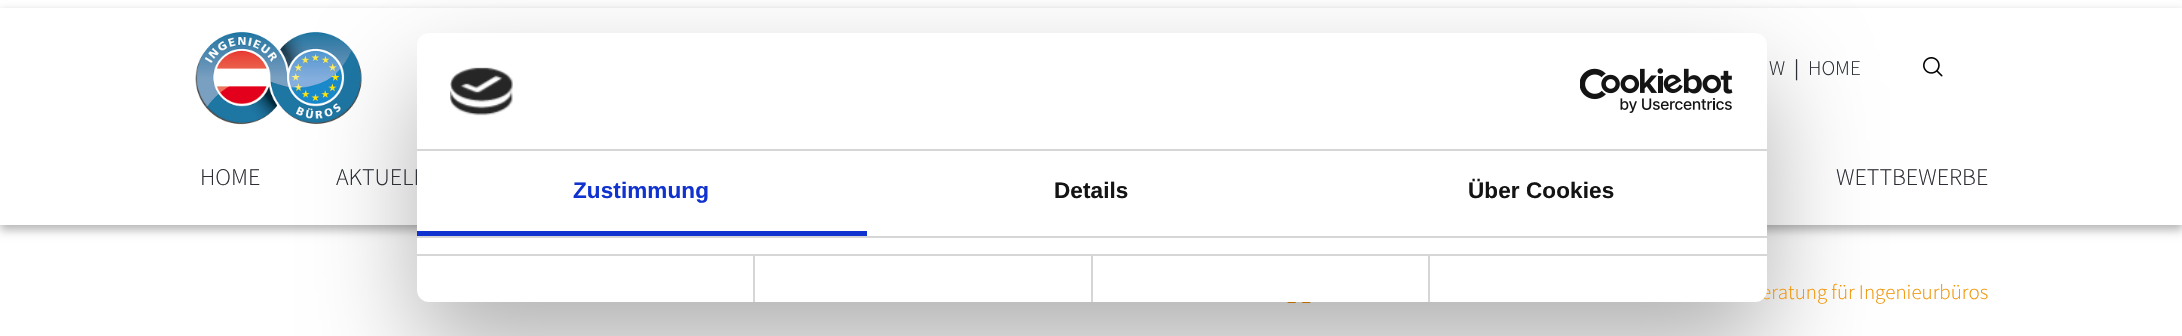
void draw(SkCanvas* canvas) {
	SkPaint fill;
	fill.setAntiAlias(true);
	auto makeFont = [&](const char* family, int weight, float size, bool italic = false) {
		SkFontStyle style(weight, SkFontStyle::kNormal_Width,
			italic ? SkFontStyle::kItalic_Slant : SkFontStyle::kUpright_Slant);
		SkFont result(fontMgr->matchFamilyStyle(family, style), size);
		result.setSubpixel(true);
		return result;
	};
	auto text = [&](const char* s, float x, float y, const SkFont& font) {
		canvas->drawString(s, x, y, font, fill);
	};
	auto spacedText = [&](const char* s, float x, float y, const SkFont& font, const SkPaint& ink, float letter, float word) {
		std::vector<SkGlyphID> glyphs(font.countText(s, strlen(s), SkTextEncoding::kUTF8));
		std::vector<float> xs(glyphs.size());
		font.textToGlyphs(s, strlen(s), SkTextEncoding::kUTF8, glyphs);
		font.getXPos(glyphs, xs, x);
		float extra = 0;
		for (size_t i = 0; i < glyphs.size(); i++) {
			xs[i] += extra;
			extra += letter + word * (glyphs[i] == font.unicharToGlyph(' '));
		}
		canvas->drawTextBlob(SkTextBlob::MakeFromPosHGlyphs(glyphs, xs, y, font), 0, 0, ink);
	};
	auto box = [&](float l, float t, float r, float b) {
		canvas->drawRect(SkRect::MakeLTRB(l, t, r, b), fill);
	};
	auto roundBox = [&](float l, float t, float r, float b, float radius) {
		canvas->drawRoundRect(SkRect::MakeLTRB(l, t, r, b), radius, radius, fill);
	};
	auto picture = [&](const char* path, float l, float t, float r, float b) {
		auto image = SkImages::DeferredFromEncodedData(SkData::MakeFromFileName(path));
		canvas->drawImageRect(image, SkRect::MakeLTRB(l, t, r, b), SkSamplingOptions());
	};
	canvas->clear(0xFFFFFFFF);
	canvas->save();
	canvas->clipPath(SkPathBuilder(SkPathFillType::kEvenOdd).moveTo(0, 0).lineTo(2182, 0).lineTo(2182, 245).lineTo(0, 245).close().moveTo(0, 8).lineTo(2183, 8).lineTo(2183, 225).lineTo(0, 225).close().detach(), true);
	fill.setColor(0x4A000000);
	fill.setMaskFilter(SkMaskFilter::MakeBlur(kNormal_SkBlurStyle, 4.5f));
	canvas->drawRect(SkRect::MakeLTRB(0, 12, 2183, 230), fill);
	fill.setMaskFilter(nullptr);
	canvas->restore();
	picture("image0.png", 195, 31, 362, 125);
	picture("image1.png", 1923, 57, 1943, 77);
	picture("image2.png", 1287, 302, 1311, 303);
	fill.setColor(0x4D000000);
	fill.setMaskFilter(SkMaskFilter::MakeBlur(kNormal_SkBlurStyle, 51));
	canvas->drawRoundRect(SkRect::MakeLTRB(417, 81, 1767, 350), 12, 12, fill);
	fill.setMaskFilter(nullptr);
	auto font1 = makeFont("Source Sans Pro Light", 300, 21);
	fill.setColor(0xFF2B2E34);
	text("W", 1769, 75, font1);
	auto font2 = makeFont("Source Sans Pro", 400, 21);
	text("|", 1794, 75, font2);
	text("HOME", 1808, 75, font1);
	auto font3 = makeFont("Source Sans Pro Light", 300, 24);
	text("HOME", 200, 185, font3);
	text("AKTUELL", 336, 185, font3);
	text("WETTBEWERBE", 1836, 185, font3);
	fill.setColor(0xFFF19403);
	text("eratung für Ingenieurbüros", 1761, 299, font1);
	fill.setColor(0xFFFFFFFF);
	roundBox(417, 33, 1767, 302, 12);
	fill.setColor(0xFFD6D6D6);
	box(417, 149, 1767, 151);
	picture("image3.png", 450, 67, 513, 116);
	picture("image4.png", 1580, 68, 1733, 113);
	box(417, 236, 1767, 238);
	fill.setColor(0xFF1032CF);
	box(417, 231, 867, 236);
	auto font4 = makeFont("Liberation Sans", 700, 22.5f);
	spacedText("Zustimmung", 573, 198, font4, fill, 0.1f, 0);
	fill.setColor(0xFF141414);
	spacedText("Details", 1054, 198, font4, fill, 0.1f, 0);
	spacedText("Über Cookies", 1468, 198, font4, fill, 0.1f, 0);
	fill.setColor(0xFFD6D6D6);
	box(753, 255, 755, 302);
	box(1091, 255, 1093, 302);
	box(1428, 255, 1430, 302);
	box(417, 254, 1767, 256);
}
